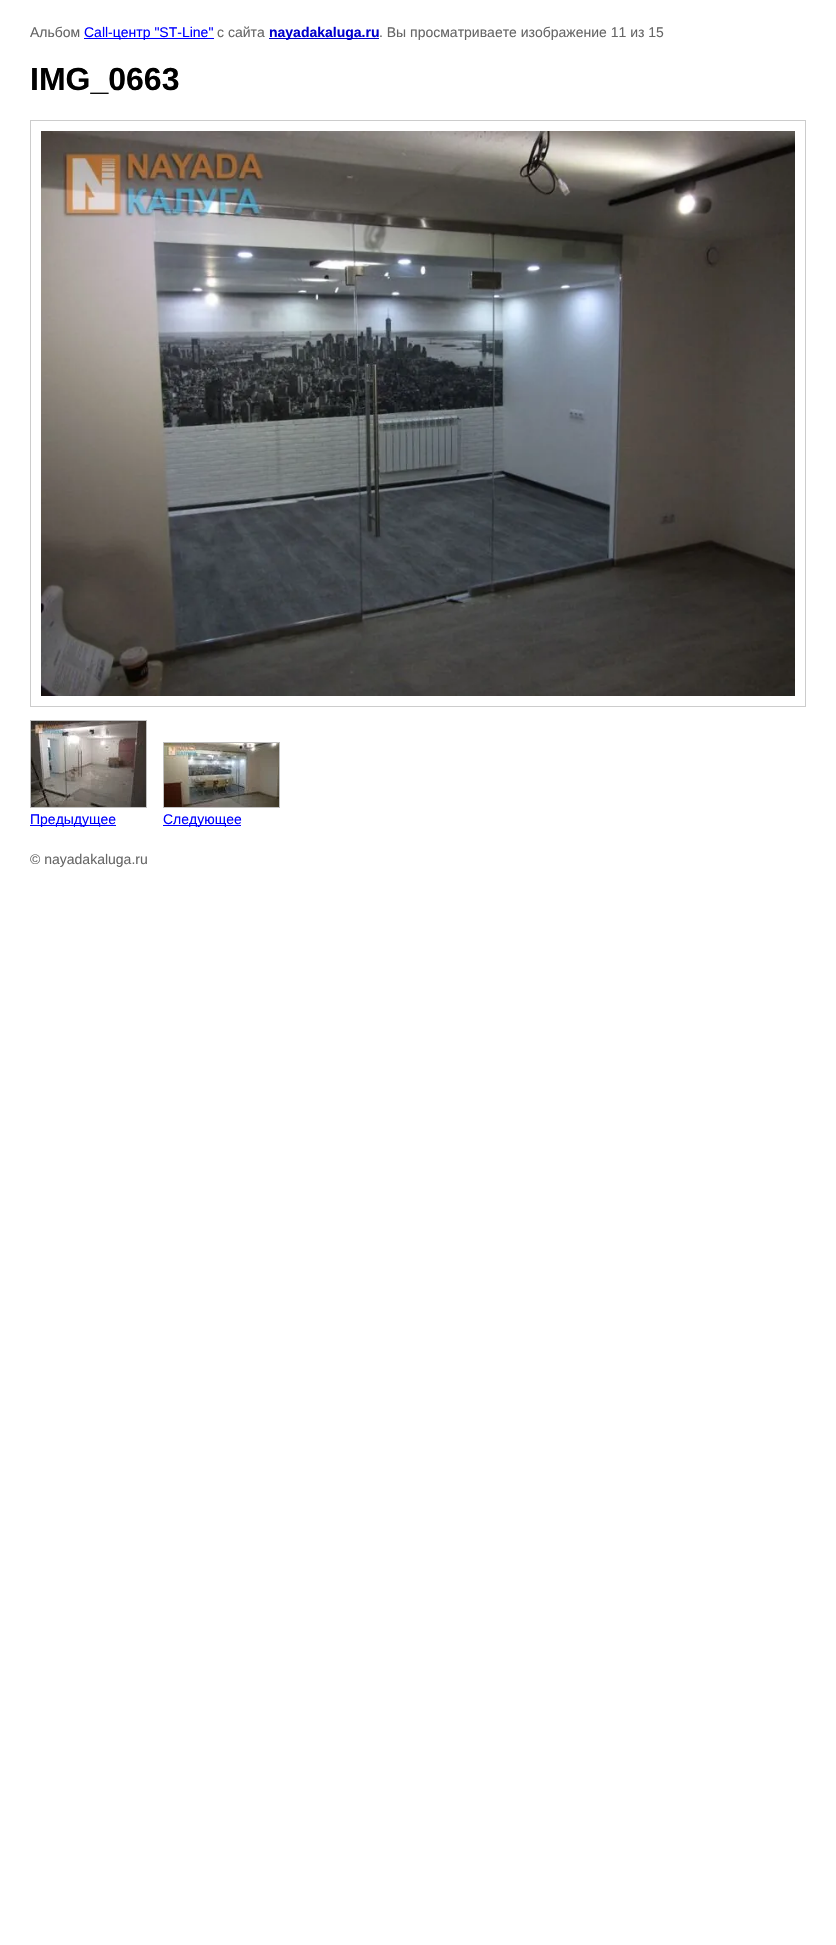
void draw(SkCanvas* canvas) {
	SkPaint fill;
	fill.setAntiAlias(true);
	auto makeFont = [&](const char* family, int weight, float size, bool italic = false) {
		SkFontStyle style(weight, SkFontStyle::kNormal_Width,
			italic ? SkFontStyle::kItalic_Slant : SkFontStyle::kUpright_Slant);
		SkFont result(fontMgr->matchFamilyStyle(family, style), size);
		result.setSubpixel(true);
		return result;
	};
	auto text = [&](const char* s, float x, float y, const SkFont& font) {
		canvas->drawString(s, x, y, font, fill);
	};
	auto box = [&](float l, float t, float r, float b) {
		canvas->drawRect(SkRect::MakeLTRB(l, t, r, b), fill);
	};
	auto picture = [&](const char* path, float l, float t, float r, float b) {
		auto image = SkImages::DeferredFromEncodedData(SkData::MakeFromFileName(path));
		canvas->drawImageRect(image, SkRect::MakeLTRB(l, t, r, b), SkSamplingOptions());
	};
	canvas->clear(0xFFFFFFFF);
	fill.setColor(0xFF0000FF);
	box(84, 38, 214, 39);
	fill.setColor(0xFF0000CC);
	box(269, 38, 379, 39);
	fill.setStyle(SkPaint::kStroke_Style);
	fill.setStrokeWidth(1);
	fill.setColor(0xFFCCCCCC);
	canvas->drawRect(SkRect::MakeLTRB(30.5f, 120.5f, 805.5f, 706.5f), fill);
	picture("image0.png", 41, 131, 795, 696);
	fill.setColor(0xFFC0C0C0);
	canvas->drawRect(SkRect::MakeLTRB(30.5f, 720.5f, 146.5f, 807.5f), fill);
	picture("image1.png", 31, 721, 146, 807);
	fill.setStyle(SkPaint::kFill_Style);
	fill.setColor(0xFF0000FF);
	box(30, 825, 116, 826);
	fill.setStyle(SkPaint::kStroke_Style);
	fill.setColor(0xFFC0C0C0);
	canvas->drawRect(SkRect::MakeLTRB(163.5f, 742.5f, 279.5f, 807.5f), fill);
	picture("image2.png", 164, 743, 279, 807);
	fill.setStyle(SkPaint::kFill_Style);
	fill.setColor(0xFF0000FF);
	box(163, 825, 241, 826);
	auto font1 = makeFont("Liberation Sans", 400, 14);
	fill.setColor(0xFF666666);
	text("Альбом", 30, 37, font1);
	fill.setColor(0xFF0000FF);
	text("Call-центр \"ST-Line\"", 84, 37, font1);
	fill.setColor(0xFF666666);
	text("с сайта", 217, 37, font1);
	auto font2 = makeFont("Liberation Sans", 700, 14);
	fill.setColor(0xFF0000CC);
	text("nayadakaluga.ru", 269, 37, font2);
	fill.setColor(0xFF666666);
	text(". Вы просматриваете изображение 11 из 15", 379, 37, font1);
	auto font3 = makeFont("Liberation Sans", 700, 32);
	fill.setColor(0xFF000000);
	text("IMG_0663", 30, 90, font3);
	fill.setColor(0xFF0000FF);
	text("Предыдущее", 30, 824, font1);
	text("Следующее", 163, 824, font1);
	fill.setColor(0xFF666666);
	text("© nayadakaluga.ru", 30, 864, font1);
}
